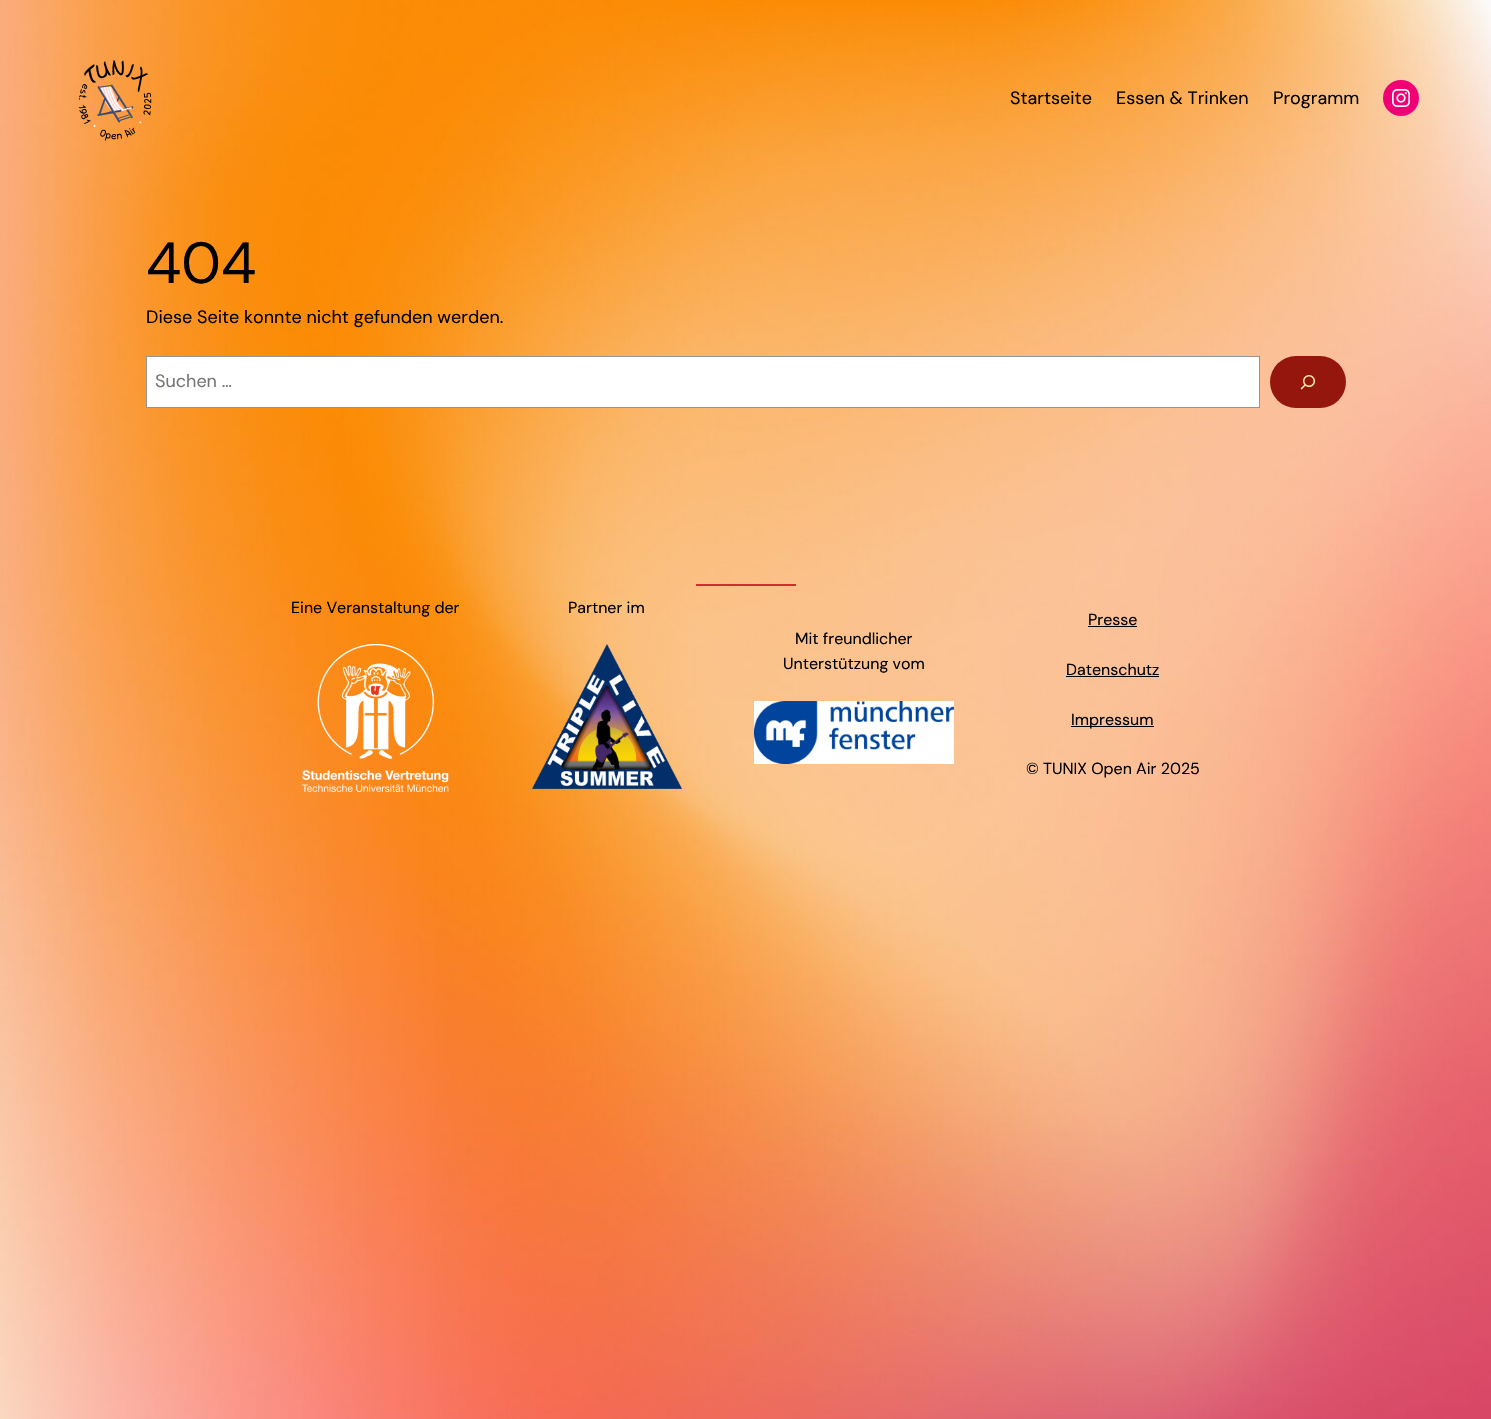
void draw(SkCanvas* canvas) {
	SkPaint fill;
	fill.setAntiAlias(true);
	auto makeFont = [&](const char* family, int weight, float size, bool italic = false) {
		SkFontStyle style(weight, SkFontStyle::kNormal_Width,
			italic ? SkFontStyle::kItalic_Slant : SkFontStyle::kUpright_Slant);
		SkFont result(fontMgr->matchFamilyStyle(family, style), size);
		result.setSubpixel(true);
		return result;
	};
	auto text = [&](const char* s, float x, float y, const SkFont& font) {
		canvas->drawString(s, x, y, font, fill);
	};
	auto box = [&](float l, float t, float r, float b) {
		canvas->drawRect(SkRect::MakeLTRB(l, t, r, b), fill);
	};
	auto roundBox = [&](float l, float t, float r, float b, float radius) {
		canvas->drawRoundRect(SkRect::MakeLTRB(l, t, r, b), radius, radius, fill);
	};
	auto picture = [&](const char* path, float l, float t, float r, float b) {
		auto image = SkImages::DeferredFromEncodedData(SkData::MakeFromFileName(path));
		canvas->drawImageRect(image, SkRect::MakeLTRB(l, t, r, b), SkSamplingOptions());
	};
	canvas->clear(0xFFFFFFFF);
	picture("image0.png", 0, 0, 1491, 1419);
	picture("image1.png", 78, 60, 152, 141);
	fill.setColor(0xFFF00075);
	canvas->drawCircle(1401, 98, 18, fill);
	picture("image2.png", 1392, 89, 1410, 107);
	fill.setColor(0xFFFFFFFF);
	canvas->drawRect(SkRect::MakeLTRB(146.5f, 356.5f, 1259.5f, 407.5f), fill);
	fill.setStyle(SkPaint::kStroke_Style);
	fill.setStrokeWidth(1);
	fill.setColor(0xFF949494);
	canvas->drawRect(SkRect::MakeLTRB(146.5f, 356.5f, 1259.5f, 407.5f), fill);
	fill.setStyle(SkPaint::kFill_Style);
	fill.setColor(0xFF95160C);
	roundBox(1270, 356, 1346, 408, 26);
	picture("image3.png", 1300, 375, 1316, 390);
	fill.setColor(0xFFCF2E2E);
	box(696, 584, 796, 586);
	picture("image4.png", 302, 644, 449, 793);
	picture("image5.png", 532, 644, 682, 789);
	picture("image6.png", 754, 701, 954, 764);
	fill.setColor(0xFF000000);
	box(1088, 626, 1137, 627);
	box(1066, 676, 1159, 677);
	box(1071, 726, 1154, 727);
	auto font1 = makeFont("DM Sans", 400, 18);
	text("Startseite", 1010, 104, font1);
	text("Essen & Trinken", 1116, 104, font1);
	text("Programm", 1273, 104, font1);
	auto font2 = makeFont("DM Sans", 400, 58);
	text("404", 146, 283, font2);
	text("Diese Seite konnte nicht gefunden werden.", 146, 323, font1);
	fill.setColor(0xFF757575);
	text("Suchen …", 155, 387, font1);
	auto font3 = makeFont("DM Sans", 400, 16);
	fill.setColor(0xFF000000);
	text("Eine Veranstaltung der", 291, 613, font3);
	text("Partner im", 568, 613, font3);
	text("Mit freundlicher", 795, 644, font3);
	text("Unterstützung vom", 783, 669, font3);
	text("Presse", 1088, 625, font3);
	text("Datenschutz", 1066, 675, font3);
	text("Impressum", 1071, 725, font3);
	text("© TUNIX Open Air 2025", 1026, 774, font3);
}
